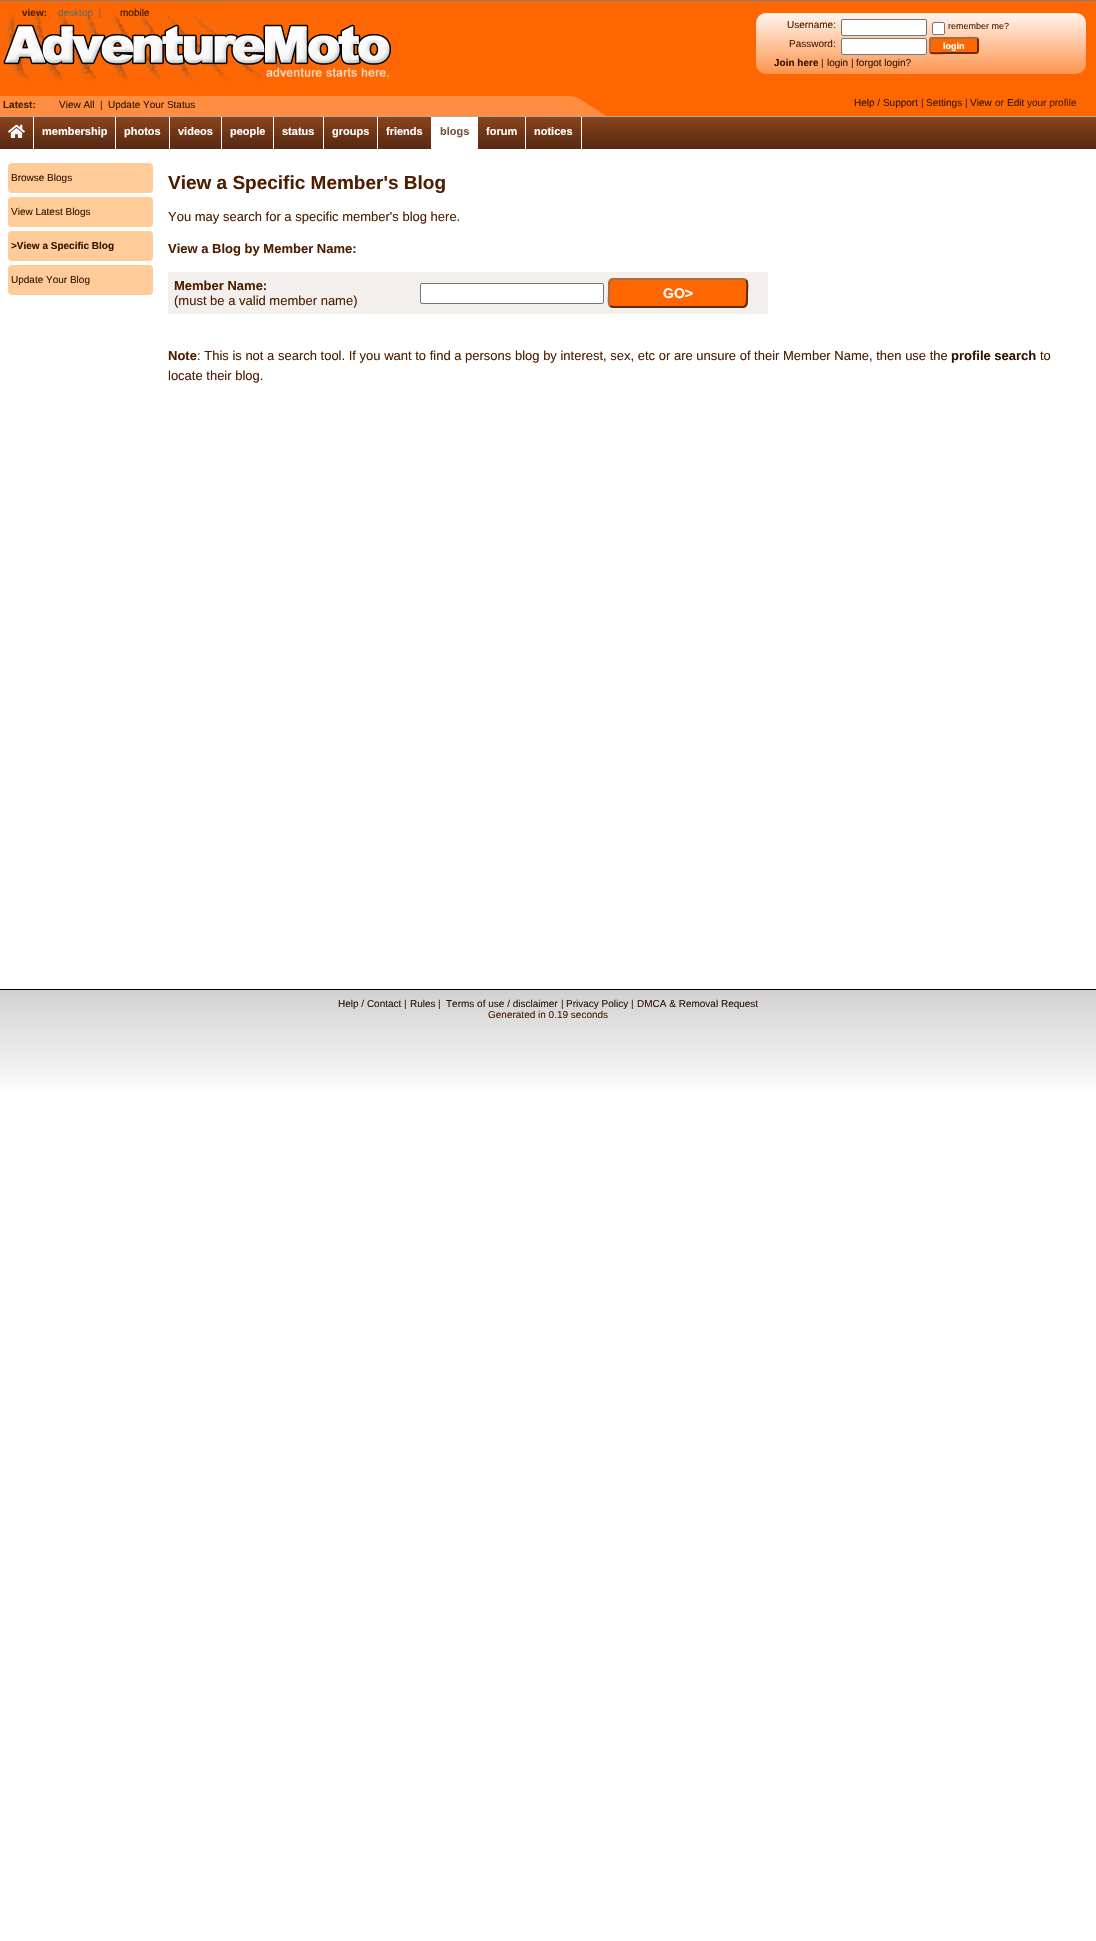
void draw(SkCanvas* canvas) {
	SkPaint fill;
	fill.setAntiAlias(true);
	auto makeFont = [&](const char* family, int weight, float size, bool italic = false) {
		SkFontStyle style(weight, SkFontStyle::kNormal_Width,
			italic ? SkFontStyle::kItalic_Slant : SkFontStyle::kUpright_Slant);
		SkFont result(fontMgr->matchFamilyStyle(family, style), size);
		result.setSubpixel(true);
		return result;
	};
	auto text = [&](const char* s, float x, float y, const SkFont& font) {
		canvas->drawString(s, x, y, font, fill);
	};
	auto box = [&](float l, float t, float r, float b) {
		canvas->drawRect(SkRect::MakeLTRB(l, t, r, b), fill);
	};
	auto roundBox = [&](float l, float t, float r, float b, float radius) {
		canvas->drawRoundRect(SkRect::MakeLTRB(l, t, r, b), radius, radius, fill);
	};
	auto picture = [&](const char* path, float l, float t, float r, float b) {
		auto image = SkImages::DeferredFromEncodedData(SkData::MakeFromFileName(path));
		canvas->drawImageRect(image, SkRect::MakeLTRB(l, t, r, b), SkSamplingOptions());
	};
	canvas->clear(0xFFFFFFFF);
	fill.setColor(0xFF808080);
	box(0, 0, 1096, 1);
	fill.setColor(0xFFFE6602);
	box(0, 1, 1096, 116);
	picture("image0.png", 0, 12, 391, 81);
	fill.setColor(0xFFFE944E);
	roundBox(756, 13, 1086, 74, 10);
	{
		const SkColor colors[] = {0xE6FFFFFF, 0x00FFFFFF};
		const float stops[] = {0, 1};
		const SkPoint ends[] = {{921, 13}, {921, 74}};
		fill.setShader(SkGradientShader::MakeLinear(ends, colors, stops, 2, SkTileMode::kClamp));
		fill.setAlpha(255);
	}
	roundBox(756, 13, 1086, 74, 10);
	fill.setShader(nullptr);
	fill.setColor(0xFFFFFFFF);
	canvas->drawRoundRect(SkRect::MakeLTRB(841.5f, 19.5f, 926.5f, 35.5f), 1.5f, 1.5f, fill);
	fill.setStyle(SkPaint::kStroke_Style);
	fill.setStrokeWidth(1);
	fill.setColor(0xFF767676);
	canvas->drawRoundRect(SkRect::MakeLTRB(841.5f, 19.5f, 926.5f, 35.5f), 1.5f, 1.5f, fill);
	fill.setStyle(SkPaint::kFill_Style);
	fill.setColor(0xFFFFFFFF);
	canvas->drawRoundRect(SkRect::MakeLTRB(841.5f, 38.5f, 926.5f, 54.5f), 1.5f, 1.5f, fill);
	fill.setStyle(SkPaint::kStroke_Style);
	fill.setColor(0xFF767676);
	canvas->drawRoundRect(SkRect::MakeLTRB(841.5f, 38.5f, 926.5f, 54.5f), 1.5f, 1.5f, fill);
	fill.setStyle(SkPaint::kFill_Style);
	fill.setColor(0xFFFFFFFF);
	canvas->drawRoundRect(SkRect::MakeLTRB(932.5f, 22.5f, 944.5f, 34.5f), 1.5f, 1.5f, fill);
	fill.setStyle(SkPaint::kStroke_Style);
	fill.setColor(0xFF767676);
	canvas->drawRoundRect(SkRect::MakeLTRB(932.5f, 22.5f, 944.5f, 34.5f), 1.5f, 1.5f, fill);
	fill.setStyle(SkPaint::kFill_Style);
	fill.setColor(0xFFFE6602);
	roundBox(929, 37, 979, 54, 3);
	fill.setStyle(SkPaint::kStroke_Style);
	fill.setStrokeWidth(2);
	fill.setColor(0xFF672900);
	canvas->drawPath(SkPathBuilder().moveTo(977.5f, 38.5f).cubicTo(978.5f, 40, 978, 42.5f, 978, 43.5f).cubicTo(978, 54.5f, 979.5f, 53, 968.5f, 53).lineTo(946.5f, 53).cubicTo(944.5f, 53, 932.5f, 54, 930.5f, 52.5f).detach(), fill);
	fill.setColor(0xFFA96D45);
	canvas->drawPath(SkPathBuilder().moveTo(930.5f, 52.5f).cubicTo(929.5f, 51, 930, 48.5f, 930, 47.5f).cubicTo(930, 36.5f, 928.5f, 38, 939.5f, 38).lineTo(961.5f, 38).cubicTo(963.5f, 38, 975.5f, 37, 977.5f, 38.5f).detach(), fill);
	picture("image1.png", 0, 96, 606, 116);
	fill.setStyle(SkPaint::kFill_Style);
	{
		const SkColor colors[] = {0xFF8B441D, 0xFF542812};
		const float stops[] = {0, 1};
		const SkPoint ends[] = {{548, 117}, {548, 149}};
		fill.setShader(SkGradientShader::MakeLinear(ends, colors, stops, 2, SkTileMode::kClamp));
		fill.setAlpha(255);
	}
	box(0, 117, 1096, 149);
	fill.setShader(nullptr);
	fill.setColor(0xFFAAAAAA);
	box(0, 116, 1096, 117);
	picture("image2.png", 8, 124, 25, 138);
	fill.setColor(0xFFFFFFFF);
	box(33, 117, 34, 149);
	box(115, 117, 116, 149);
	box(169, 117, 170, 149);
	box(221, 117, 222, 149);
	box(273, 117, 274, 149);
	box(323, 117, 324, 149);
	box(377, 117, 378, 149);
	box(431, 117, 432, 149);
	box(432, 117, 478, 149);
	box(525, 117, 526, 149);
	box(581, 117, 582, 149);
	fill.setColor(0xFFFFCC99);
	roundBox(8, 163, 153, 193, 4);
	roundBox(8, 197, 153, 227, 4);
	roundBox(8, 231, 153, 261, 4);
	roundBox(8, 265, 153, 295, 4);
	fill.setColor(0xFFF3EFED);
	box(168, 272, 768, 314);
	fill.setColor(0xFFFFFFFF);
	canvas->drawRoundRect(SkRect::MakeLTRB(420.5f, 283.5f, 603.5f, 303.5f), 1.5f, 1.5f, fill);
	fill.setStyle(SkPaint::kStroke_Style);
	fill.setStrokeWidth(1);
	fill.setColor(0xFF767676);
	canvas->drawRoundRect(SkRect::MakeLTRB(420.5f, 283.5f, 603.5f, 303.5f), 1.5f, 1.5f, fill);
	fill.setStyle(SkPaint::kFill_Style);
	fill.setColor(0xFFFE6602);
	roundBox(608, 278, 748, 308, 5);
	fill.setStyle(SkPaint::kStroke_Style);
	fill.setStrokeWidth(2);
	fill.setColor(0xFF672900);
	canvas->drawPath(SkPathBuilder().moveTo(746, 280).cubicTo(748.5f, 282.5f, 747, 290, 747, 293).lineTo(747, 299.5f).cubicTo(747, 302.5f, 747, 307, 743, 307).lineTo(613, 307).lineTo(610, 306).detach(), fill);
	fill.setColor(0xFFA96D45);
	canvas->drawPath(SkPathBuilder().moveTo(610, 306).cubicTo(607.5f, 303.5f, 609, 296, 609, 293).lineTo(609, 286.5f).cubicTo(609, 283.5f, 609, 279, 613, 279).lineTo(743, 279).lineTo(746, 280).detach(), fill);
	fill.setStyle(SkPaint::kFill_Style);
	{
		const SkColor colors[] = {0xFFCCCCCC, 0xFFDBDBDB, 0xFFD1D1D1, 0xFFFEFEFE};
		const float stops[] = {0, 0, 0, 1};
		const SkPoint ends[] = {{548, 990}, {548, 1096}};
		fill.setShader(SkGradientShader::MakeLinear(ends, colors, stops, 4, SkTileMode::kClamp));
		fill.setAlpha(255);
	}
	box(0, 990, 1096, 1092);
	fill.setShader(nullptr);
	fill.setColor(0xFF000000);
	box(0, 989, 1096, 990);
	auto font1 = makeFont("Liberation Sans", 700, 10);
	fill.setColor(0xFF4D1F00);
	text("view:", 22, 16, font1);
	auto font2 = makeFont("Liberation Sans", 400, 10);
	fill.setColor(0xFF666666);
	text("desktop  |", 58, 16, font2);
	fill.setColor(0xFF341500);
	text("mobile", 120, 16, font2);
	fill.setColor(0xFF4D1F00);
	text("Username:", 787, 28, font2);
	text("Password:", 789, 47, font2);
	auto font3 = makeFont("Liberation Sans", 400, 9);
	text("remember me?", 948, 29, font3);
	auto font4 = makeFont("Liberation Sans", 700, 9);
	fill.setColor(0xFFFFFFFF);
	text("login", 943, 49, font4);
	fill.setColor(0xFF341500);
	text("Join here", 774, 66, font1);
	fill.setColor(0xFF4D1F00);
	text("|", 821, 66, font2);
	fill.setColor(0xFF341500);
	text("login", 827, 66, font2);
	fill.setColor(0xFF4D1F00);
	text("|", 851, 66, font2);
	fill.setColor(0xFF341500);
	text("forgot login?", 856, 66, font2);
	fill.setColor(0xFF4D1F00);
	text("Latest:", 3, 108, font1);
	fill.setColor(0xFF341500);
	text("View All", 59, 108, font2);
	fill.setColor(0xFF4D1F00);
	text("|", 100, 108, font2);
	fill.setColor(0xFF341500);
	text("Update Your Status", 108, 108, font2);
	text("Help / Support", 854, 106, font2);
	fill.setColor(0xFF4D1F00);
	text("|", 921, 106, font2);
	fill.setColor(0xFF341500);
	text("Settings", 926, 106, font2);
	fill.setColor(0xFF4D1F00);
	text("|", 965, 106, font2);
	fill.setColor(0xFF341500);
	text("View", 970, 106, font2);
	fill.setColor(0xFF4D1F00);
	text("or", 995, 106, font2);
	fill.setColor(0xFF341500);
	text("Edit", 1007, 106, font2);
	fill.setColor(0xFF4D1F00);
	text("your profile", 1027, 106, font2);
	auto font5 = makeFont("Liberation Sans", 700, 11);
	fill.setColor(0xFFFFFFFF);
	text("membership", 42, 135, font5);
	text("photos", 124, 135, font5);
	text("videos", 178, 135, font5);
	text("people", 230, 135, font5);
	text("status", 282, 135, font5);
	text("friends", 386, 135, font5);
	text("groups", 332, 135, font5);
	fill.setColor(0xFF7A5340);
	text("blogs", 440, 135, font5);
	fill.setColor(0xFFFFFFFF);
	text("forum", 486, 135, font5);
	text("notices", 534, 135, font5);
	fill.setColor(0xFF341500);
	text("Browse Blogs", 11, 181, font2);
	text("View Latest Blogs", 11, 215, font2);
	text(">View a Specific Blog", 11, 249, font1);
	text("Update Your Blog", 11, 283, font2);
	auto font6 = makeFont("Liberation Sans", 700, 19);
	fill.setColor(0xFF4D1F00);
	text("View a Specific Member's Blog", 168, 189, font6);
	auto font7 = makeFont("Liberation Sans", 400, 13);
	text("You may search for a specific member's blog here.", 168, 221, font7);
	auto font8 = makeFont("Liberation Sans", 700, 13);
	text("View a Blog by Member Name:", 168, 253, font8);
	text("Member Name:", 174, 290, font8);
	text("(must be a valid member name)", 174, 305, font7);
	auto font9 = makeFont("Liberation Sans", 700, 14);
	fill.setColor(0xFFFFFFFF);
	text("GO>", 663, 298, font9);
	fill.setColor(0xFF4D1F00);
	text("Note", 168, 360, font8);
	text(": This is not a search tool. If you want to find a persons blog by interest, sex, etc or are unsure of their Member Name, then use the", 197, 360, font7);
	fill.setColor(0xFF341500);
	text("profile search", 951, 360, font8);
	fill.setColor(0xFF4D1F00);
	text("to", 1040, 360, font7);
	text("locate their blog.", 168, 380, font7);
	fill.setColor(0xFF341500);
	text("Help / Contact", 338, 1007, font2);
	fill.setColor(0xFF4D1F00);
	text("|", 404, 1007, font2);
	fill.setColor(0xFF341500);
	text("Rules", 410, 1007, font2);
	fill.setColor(0xFF4D1F00);
	text("|", 438, 1007, font2);
	fill.setColor(0xFF341500);
	text("Terms of use / disclaimer", 446, 1007, font2);
	fill.setColor(0xFF4D1F00);
	text("|", 561, 1007, font2);
	fill.setColor(0xFF341500);
	text("Privacy Policy", 566, 1007, font2);
	fill.setColor(0xFF4D1F00);
	text("|", 631, 1007, font2);
	fill.setColor(0xFF341500);
	text("DMCA & Removal Request", 637, 1007, font2);
	fill.setColor(0xFF4D1F00);
	text("Generated in 0.19 seconds", 488, 1018, font2);
}
